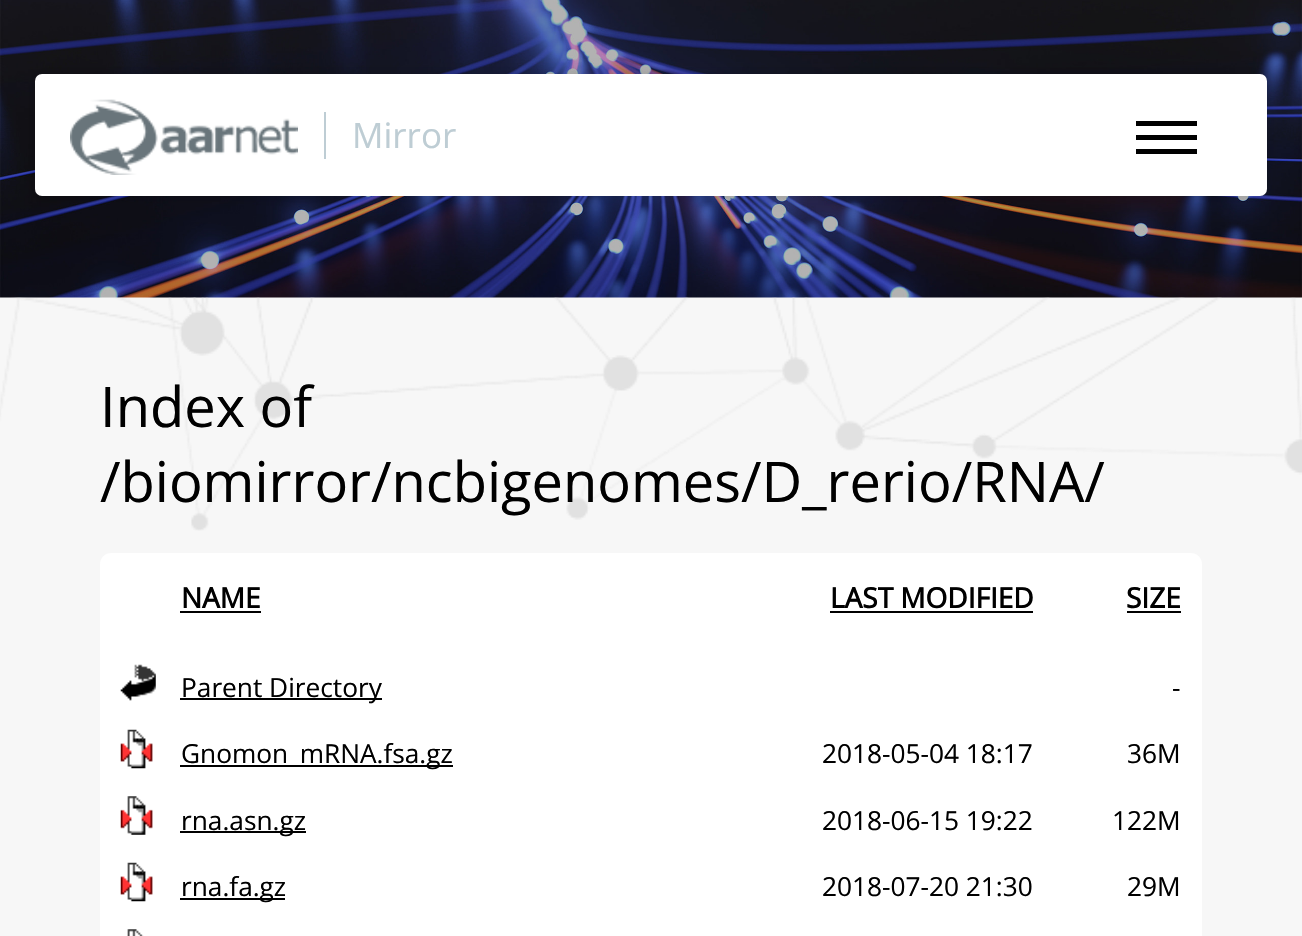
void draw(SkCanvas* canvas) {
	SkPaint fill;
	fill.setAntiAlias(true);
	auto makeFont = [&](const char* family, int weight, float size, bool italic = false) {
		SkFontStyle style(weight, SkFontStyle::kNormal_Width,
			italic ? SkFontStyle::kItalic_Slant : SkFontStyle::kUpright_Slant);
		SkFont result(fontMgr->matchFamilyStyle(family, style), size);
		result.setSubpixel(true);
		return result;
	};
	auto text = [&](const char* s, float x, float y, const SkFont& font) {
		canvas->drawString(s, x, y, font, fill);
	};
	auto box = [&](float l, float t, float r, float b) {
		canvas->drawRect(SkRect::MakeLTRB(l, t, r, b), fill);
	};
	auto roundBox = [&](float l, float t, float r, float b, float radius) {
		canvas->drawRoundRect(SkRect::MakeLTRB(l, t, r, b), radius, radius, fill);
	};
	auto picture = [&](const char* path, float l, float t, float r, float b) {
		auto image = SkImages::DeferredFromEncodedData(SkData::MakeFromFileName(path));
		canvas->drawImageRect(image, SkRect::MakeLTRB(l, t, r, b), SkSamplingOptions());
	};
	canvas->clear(0xFFF7F7F7);
	picture("image0.png", 0, 0, 1302, 298);
	fill.setColor(0x26000000);
	fill.setMaskFilter(SkMaskFilter::MakeBlur(kNormal_SkBlurStyle, 7));
	canvas->drawRoundRect(SkRect::MakeLTRB(35, 74, 1267, 196), 7, 7, fill);
	fill.setMaskFilter(nullptr);
	fill.setColor(0xFFFFFFFF);
	roundBox(35, 74, 1267, 196, 7);
	picture("image1.png", 70, 99, 298, 175);
	fill.setColor(0xFFBECDD4);
	box(324, 112, 326, 159);
	fill.setColor(0xFF000000);
	box(1136, 135, 1197, 140);
	box(1136, 121, 1197, 126);
	box(1136, 149, 1197, 154);
	picture("image2.png", 0, 297, 1302, 531);
	fill.setColor(0xFFFFFFFF);
	roundBox(100, 553, 1202, 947, 11);
	fill.setColor(0xFF000000);
	box(180, 611, 261, 613);
	box(830, 611, 1033, 613);
	box(1127, 611, 1181, 613);
	picture("image3.png", 120, 664, 156, 701);
	box(180, 698, 382, 700);
	picture("image4.png", 120, 729, 153, 769);
	box(180, 765, 453, 767);
	picture("image5.png", 120, 796, 153, 835);
	box(180, 831, 306, 833);
	picture("image4.png", 120, 862, 153, 902);
	box(180, 898, 285, 900);
	picture("image6.png", 127, 929, 144, 936);
	auto font1 = makeFont("Open Sans", 400, 35);
	fill.setColor(0xFFBECDD4);
	text("Mirror", 352, 148, font1);
	auto font2 = makeFont("Open Sans", 400, 56);
	fill.setColor(0xFF000000);
	text("Index of", 100, 427, font2);
	text("/biomirror/ncbigenomes/D_rerio/RNA/", 100, 502, font2);
	auto font3 = makeFont("Open Sans", 700, 28);
	text("NAME", 181, 608, font3);
	text("LAST MODIFIED", 830, 608, font3);
	text("SIZE", 1126, 608, font3);
	auto font4 = makeFont("Open Sans", 400, 26.25f);
	text("Parent Directory", 181, 697, font4);
	text("-", 1172, 697, font4);
	text("Gnomon_mRNA.fsa.gz", 181, 763, font4);
	text("2018-05-04 18:17", 822, 763, font4);
	text("36M", 1127, 763, font4);
	text("rna.asn.gz", 181, 830, font4);
	text("2018-06-15 19:22", 822, 830, font4);
	text("122M", 1112, 830, font4);
	text("rna.fa.gz", 181, 896, font4);
	text("2018-07-20 21:30", 822, 896, font4);
	text("29M", 1127, 896, font4);
}
